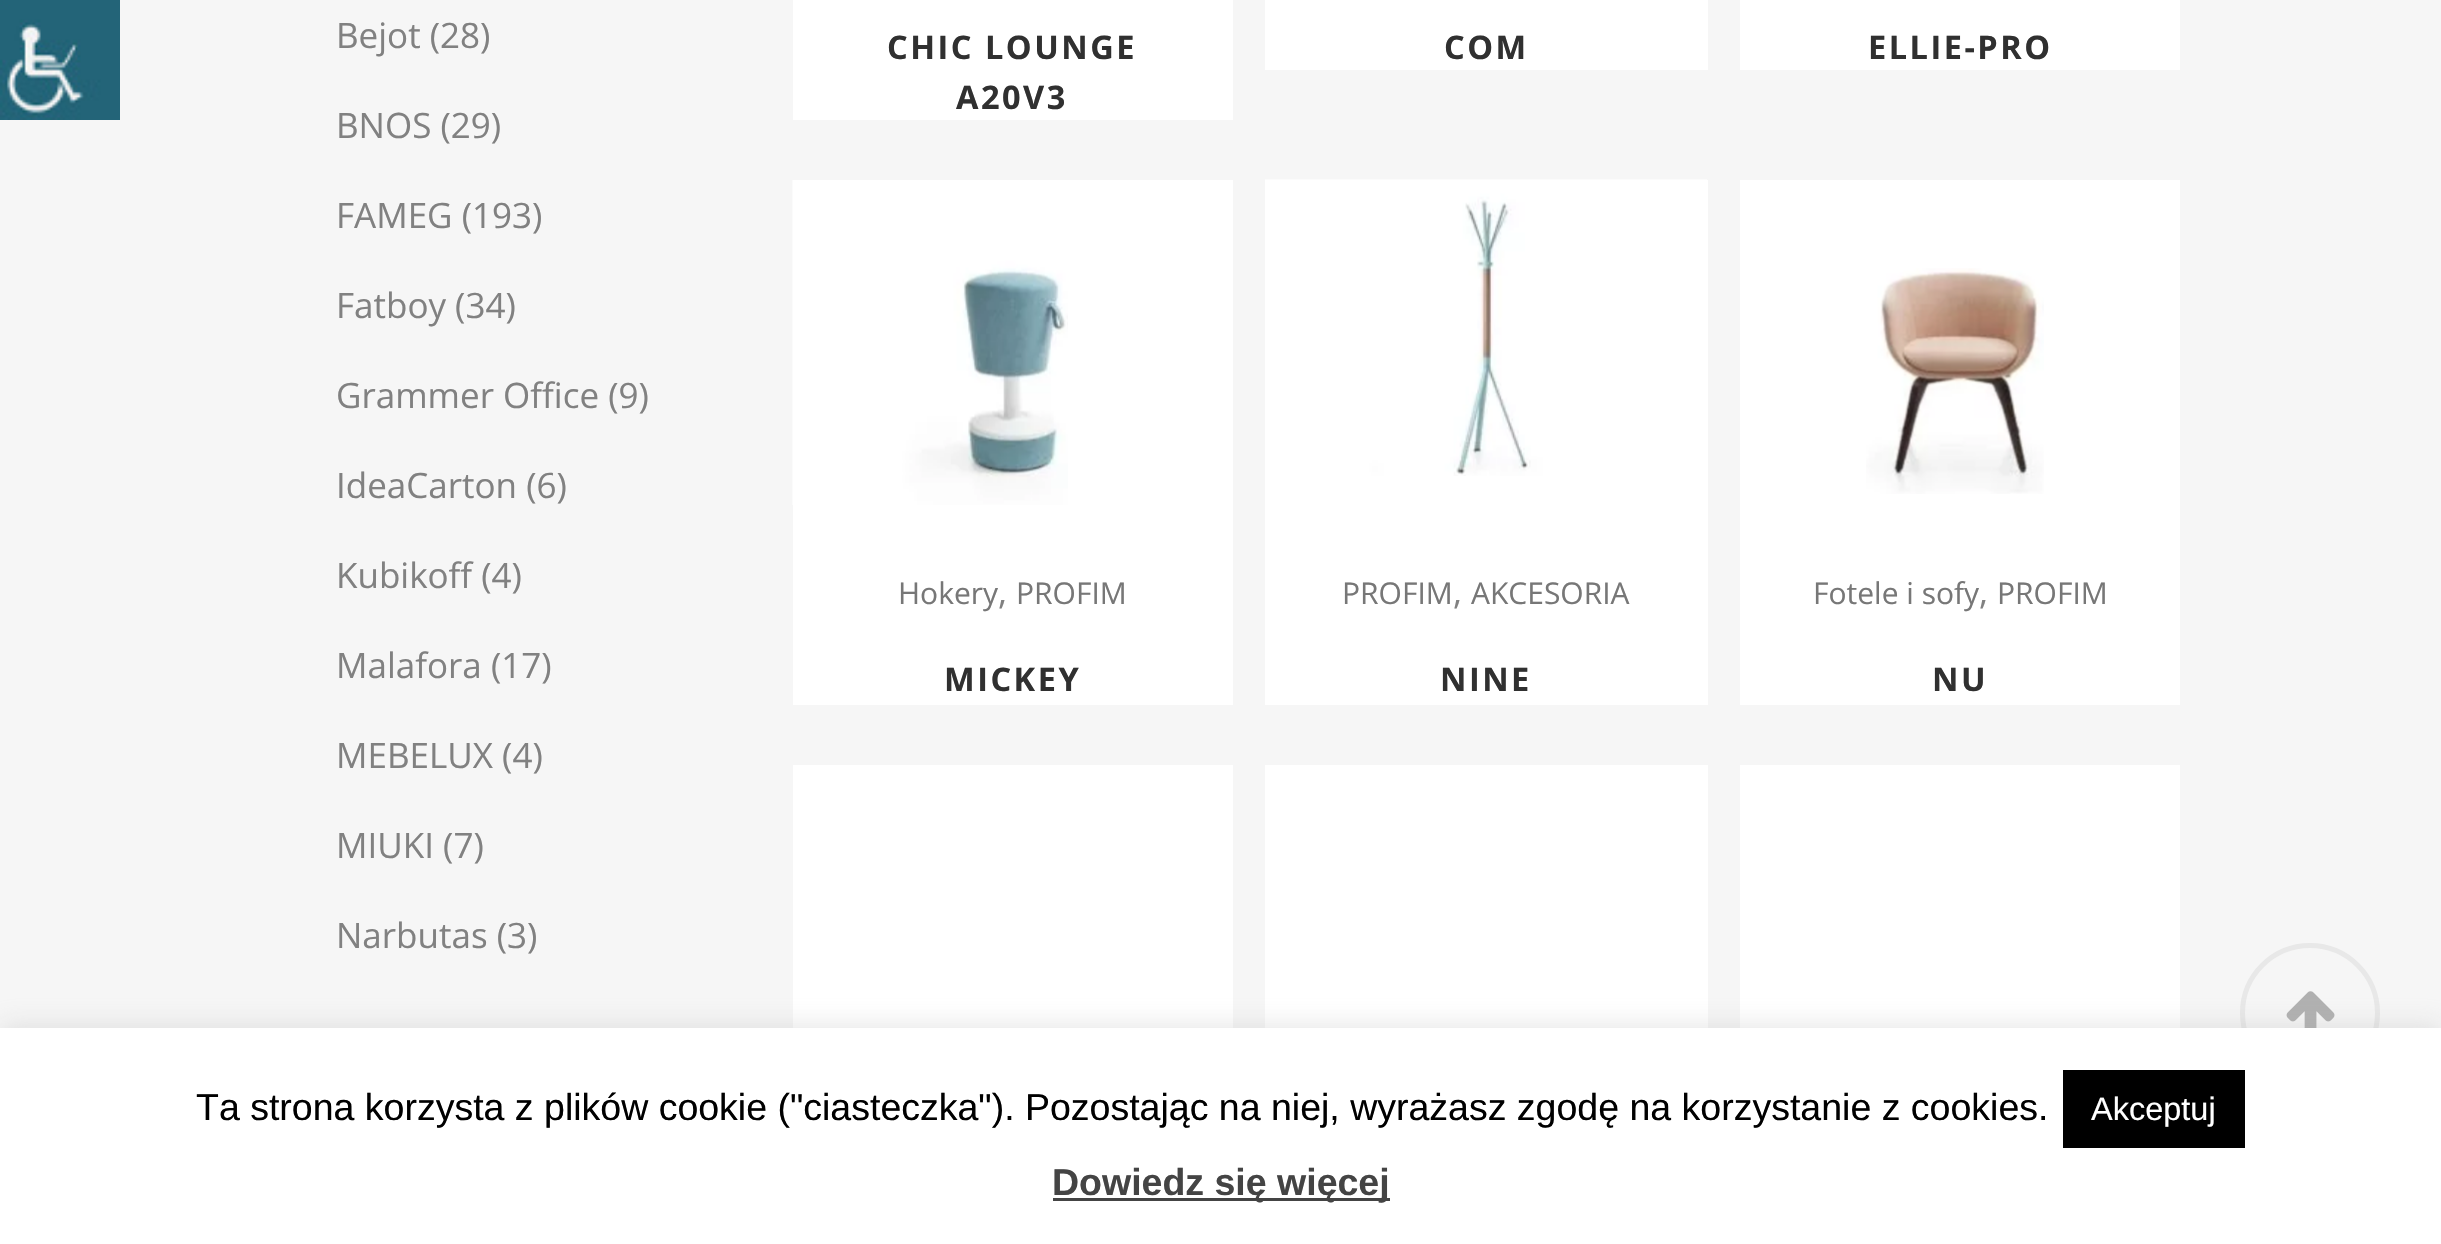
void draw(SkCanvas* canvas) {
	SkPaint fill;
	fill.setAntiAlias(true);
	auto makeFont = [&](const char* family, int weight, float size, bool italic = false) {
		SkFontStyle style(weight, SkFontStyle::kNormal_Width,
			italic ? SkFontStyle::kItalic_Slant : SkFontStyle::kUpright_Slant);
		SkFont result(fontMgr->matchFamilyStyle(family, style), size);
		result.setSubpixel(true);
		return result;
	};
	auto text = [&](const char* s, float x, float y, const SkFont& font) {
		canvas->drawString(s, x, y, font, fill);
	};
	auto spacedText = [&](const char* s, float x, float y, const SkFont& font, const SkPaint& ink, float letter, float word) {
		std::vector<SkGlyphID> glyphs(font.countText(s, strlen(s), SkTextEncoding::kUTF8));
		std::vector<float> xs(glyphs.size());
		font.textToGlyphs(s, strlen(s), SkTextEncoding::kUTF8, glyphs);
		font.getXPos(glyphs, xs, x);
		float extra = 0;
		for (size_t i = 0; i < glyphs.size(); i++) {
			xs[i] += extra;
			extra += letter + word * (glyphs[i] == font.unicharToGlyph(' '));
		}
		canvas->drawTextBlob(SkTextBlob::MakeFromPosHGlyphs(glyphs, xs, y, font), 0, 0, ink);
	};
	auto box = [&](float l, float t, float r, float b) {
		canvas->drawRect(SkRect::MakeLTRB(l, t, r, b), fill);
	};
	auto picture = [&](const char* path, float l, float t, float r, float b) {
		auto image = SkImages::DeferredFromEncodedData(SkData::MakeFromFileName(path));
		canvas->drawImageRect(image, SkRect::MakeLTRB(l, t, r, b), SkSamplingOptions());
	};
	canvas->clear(0xFFF6F6F6);
	picture("image0.png", 0, 0, 120, 120);
	fill.setColor(0xFFFFFFFF);
	box(793, 0, 1233, 120);
	box(1265, 0, 1708, 70);
	box(1740, 0, 2180, 70);
	box(793, 180, 1233, 705);
	picture("image1.png", 792, 180, 1068, 505);
	box(1265, 180, 1708, 705);
	picture("image2.png", 1265, 179, 1707, 476);
	box(1740, 180, 2180, 705);
	picture("image3.png", 1866, 268, 2044, 494);
	box(793, 765, 1233, 1028);
	box(1265, 765, 1708, 1028);
	box(1740, 765, 2180, 1028);
	fill.setStyle(SkPaint::kStroke_Style);
	fill.setStrokeWidth(5);
	fill.setColor(0xFFE8E8E8);
	canvas->drawCircle(2310, 1013, 67.5f, fill);
	picture("image4.png", 2286, 991, 2335, 1028);
	fill.setStyle(SkPaint::kFill_Style);
	fill.setColor(0x4DACABAB);
	fill.setMaskFilter(SkMaskFilter::MakeBlur(kNormal_SkBlurStyle, 12.5f));
	canvas->drawRect(SkRect::MakeLTRB(0, 1025, 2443, 1243), fill);
	fill.setMaskFilter(nullptr);
	fill.setColor(0xFFFFFFFF);
	box(0, 1028, 2441, 1244);
	fill.setColor(0xFF000000);
	box(2063, 1070, 2245, 1148);
	fill.setColor(0xFF444444);
	box(1053, 1198, 1390, 1201);
	auto font1 = makeFont("Open Sans", 400, 35);
	fill.setColor(0xFF818181);
	text("Bejot (28)", 336, 48, font1);
	text("BNOS (29)", 336, 138, font1);
	text("FAMEG (193)", 336, 228, font1);
	text("Fatboy (34)", 336, 318, font1);
	text("Grammer Office (9)", 336, 408, font1);
	text("IdeaCarton (6)", 336, 498, font1);
	text("Kubikoff (4)", 336, 588, font1);
	text("Malafora (17)", 336, 678, font1);
	text("MEBELUX (4)", 336, 768, font1);
	text("MIUKI (7)", 336, 858, font1);
	text("Narbutas (3)", 336, 948, font1);
	auto font2 = makeFont("Open Sans", 700, 32.5f);
	fill.setColor(0xFF303030);
	spacedText("CHIC LOUNGE", 887, 59, font2, fill, 2.5f, 0);
	spacedText("A20V3", 956, 109, font2, fill, 2.5f, 0);
	spacedText("COM", 1444, 59, font2, fill, 2.5f, 0);
	spacedText("ELLIE-PRO", 1868, 59, font2, fill, 2.5f, 0);
	auto font3 = makeFont("Open Sans", 400, 30);
	fill.setColor(0xFF777777);
	text("Hokery", 898, 604, font3);
	fill.setColor(0xFF818181);
	text(",", 998, 604, font1);
	fill.setColor(0xFF777777);
	text("PROFIM", 1016, 604, font3);
	fill.setColor(0xFF303030);
	spacedText("MICKEY", 944, 691, font2, fill, 2.5f, 0);
	fill.setColor(0xFF777777);
	text("PROFIM", 1342, 604, font3);
	fill.setColor(0xFF818181);
	text(",", 1453, 604, font1);
	fill.setColor(0xFF777777);
	text("AKCESORIA", 1471, 604, font3);
	fill.setColor(0xFF303030);
	spacedText("NINE", 1440, 691, font2, fill, 2.5f, 0);
	fill.setColor(0xFF777777);
	text("Fotele i sofy", 1813, 604, font3);
	fill.setColor(0xFF818181);
	text(",", 1979, 604, font1);
	fill.setColor(0xFF777777);
	text("PROFIM", 1997, 604, font3);
	fill.setColor(0xFF303030);
	spacedText("NU", 1932, 691, font2, fill, 2.5f, 0);
	auto font4 = makeFont("Liberation Sans", 400, 37.5f);
	fill.setColor(0xFF000000);
	text("Ta strona korzysta z plików cookie (\"ciasteczka\"). Pozostając na niej, wyrażasz zgodę na korzystanie z cookies.", 196, 1120, font4);
	auto font5 = makeFont("Liberation Sans", 400, 32.5f);
	fill.setColor(0xFFFFFFFF);
	text("Akceptuj", 2091, 1120, font5);
	auto font6 = makeFont("Liberation Sans", 700, 37.5f);
	fill.setColor(0xFF444444);
	text("Dowiedz się więcej", 1052, 1195, font6);
}
